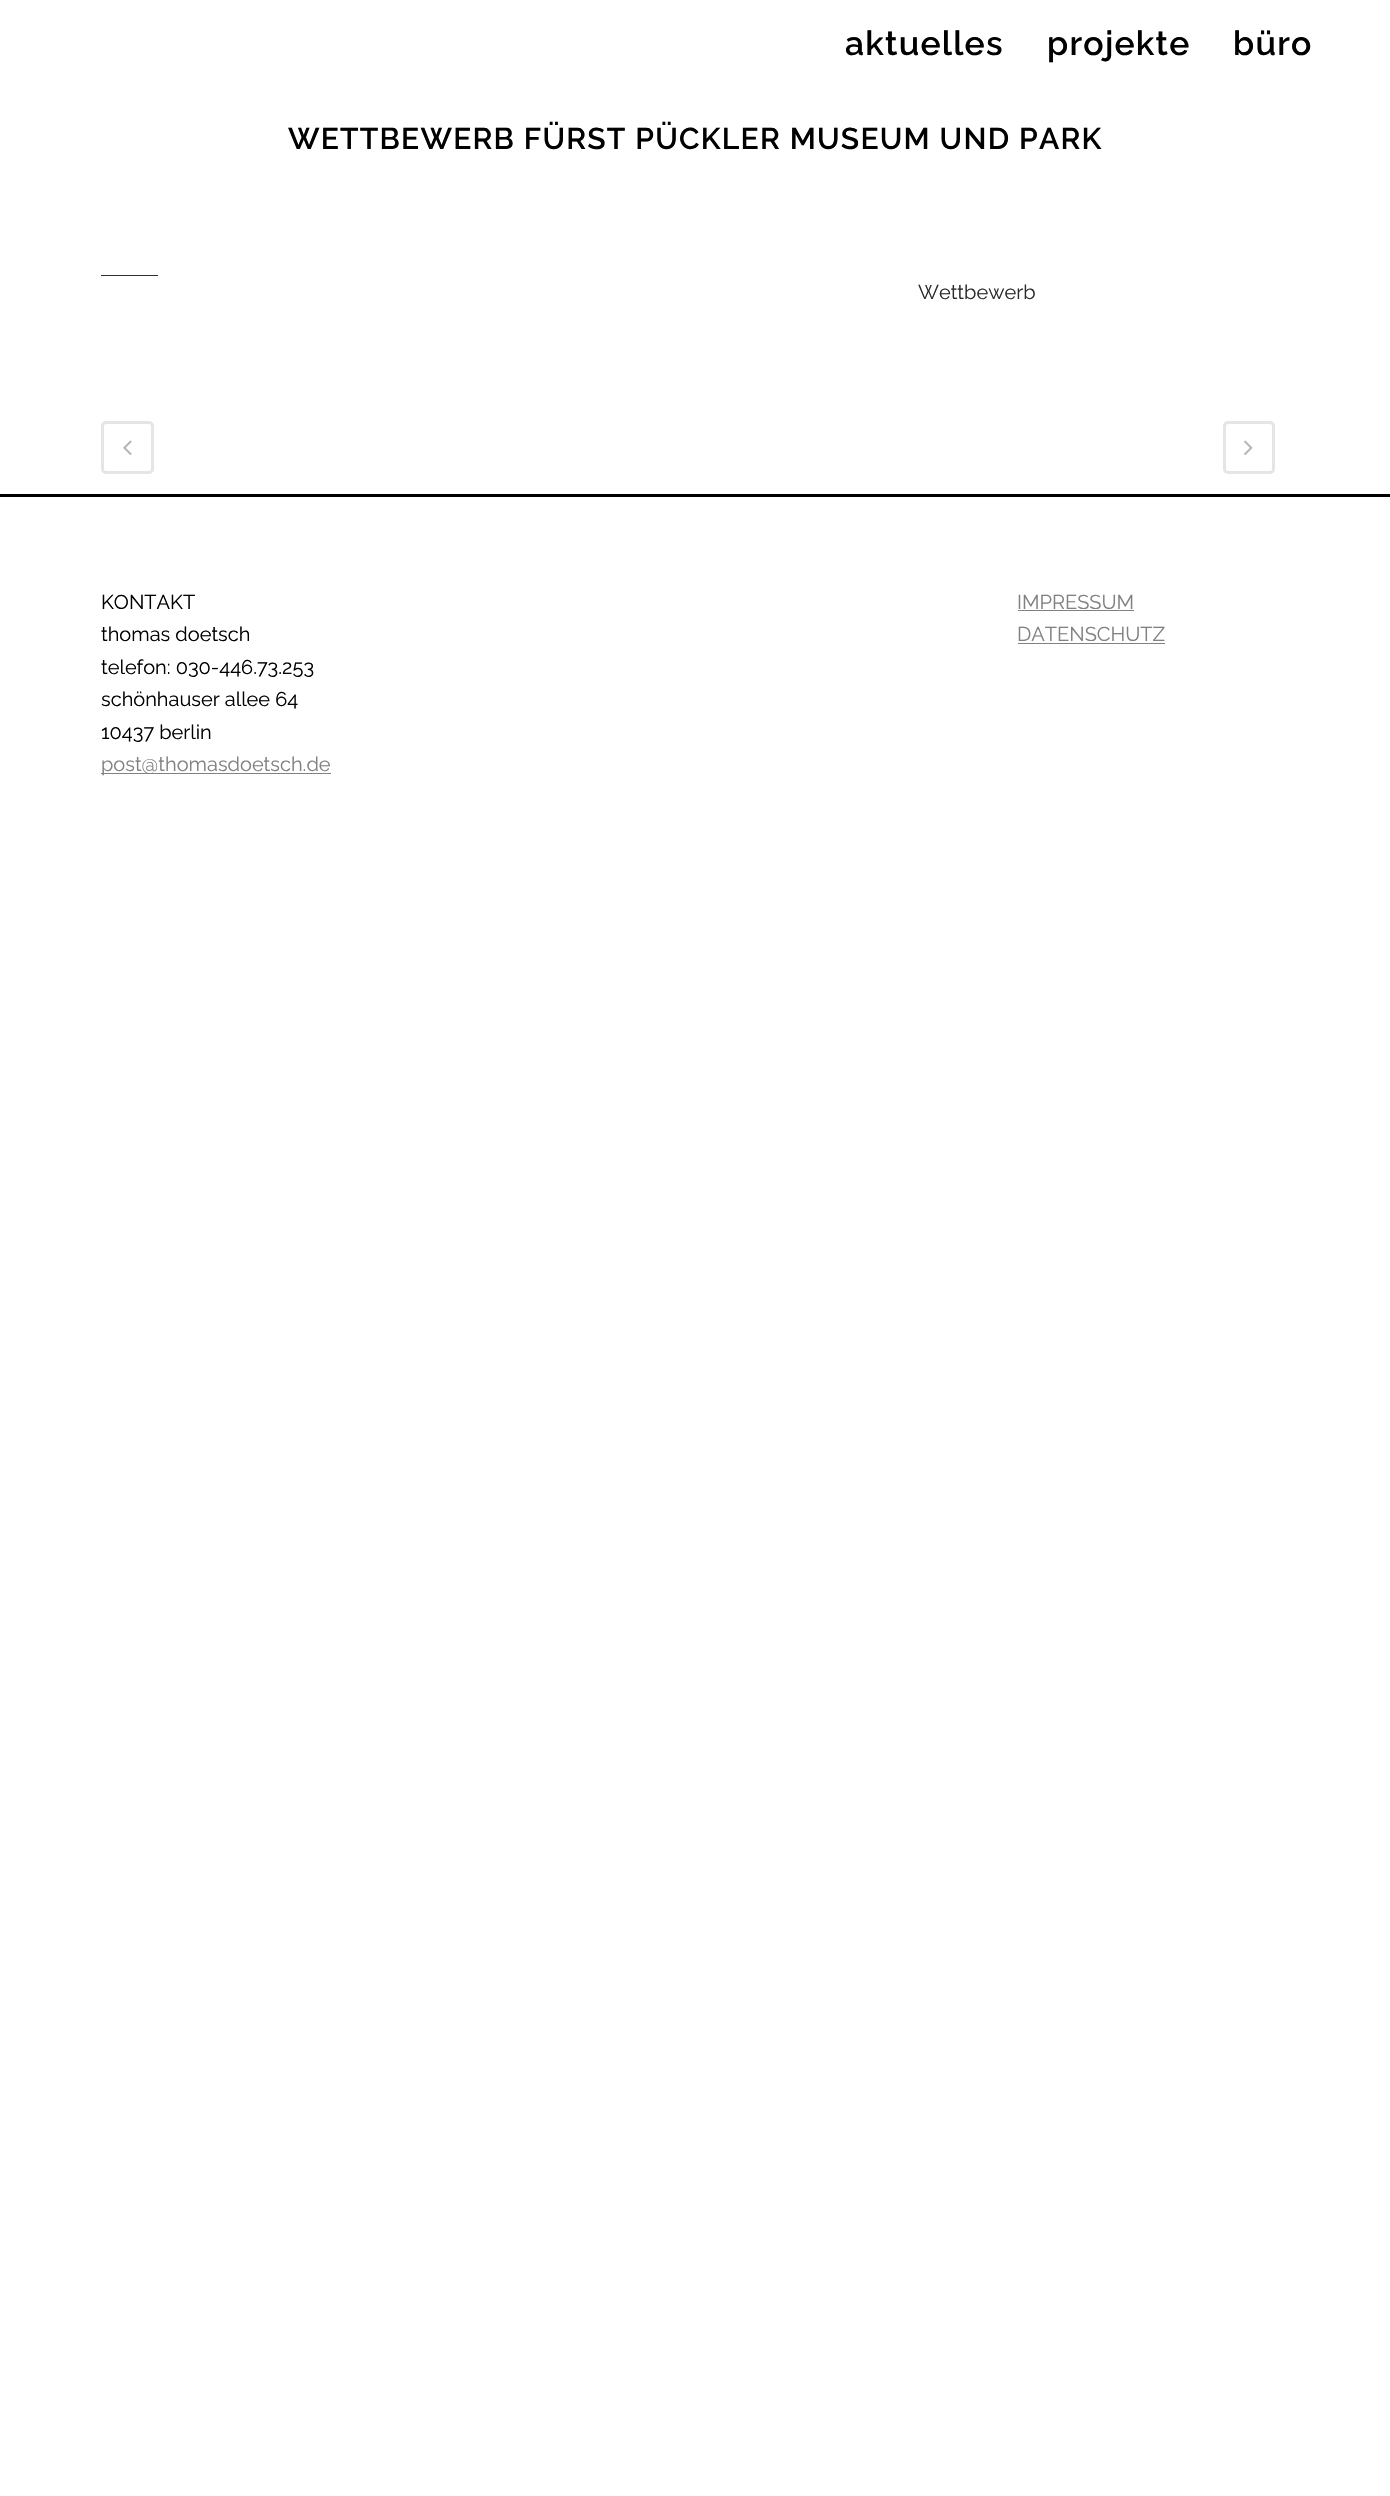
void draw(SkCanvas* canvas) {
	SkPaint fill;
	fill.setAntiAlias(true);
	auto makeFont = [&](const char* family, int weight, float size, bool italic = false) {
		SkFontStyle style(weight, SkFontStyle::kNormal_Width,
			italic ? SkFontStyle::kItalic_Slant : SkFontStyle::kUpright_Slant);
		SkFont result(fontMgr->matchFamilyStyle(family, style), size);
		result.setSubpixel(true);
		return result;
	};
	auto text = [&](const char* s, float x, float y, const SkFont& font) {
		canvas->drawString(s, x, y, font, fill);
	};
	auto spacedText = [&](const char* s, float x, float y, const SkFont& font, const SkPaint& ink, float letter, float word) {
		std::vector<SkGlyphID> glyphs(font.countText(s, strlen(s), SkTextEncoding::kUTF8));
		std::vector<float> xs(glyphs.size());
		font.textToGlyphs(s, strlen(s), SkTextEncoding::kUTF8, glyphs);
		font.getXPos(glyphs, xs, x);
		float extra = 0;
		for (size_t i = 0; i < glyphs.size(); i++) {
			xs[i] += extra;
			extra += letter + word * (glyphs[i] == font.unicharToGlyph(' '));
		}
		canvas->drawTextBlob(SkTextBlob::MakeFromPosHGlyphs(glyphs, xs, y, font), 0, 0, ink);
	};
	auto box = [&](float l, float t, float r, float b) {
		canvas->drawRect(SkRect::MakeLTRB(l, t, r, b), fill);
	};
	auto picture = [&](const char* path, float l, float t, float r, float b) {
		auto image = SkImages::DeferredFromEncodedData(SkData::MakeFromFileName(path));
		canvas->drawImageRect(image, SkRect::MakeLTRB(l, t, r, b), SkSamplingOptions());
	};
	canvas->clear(0xFFFFFFFF);
	fill.setColor(0xFF303030);
	box(101, 275, 158, 276);
	fill.setStyle(SkPaint::kStroke_Style);
	fill.setStrokeWidth(3);
	fill.setColor(0xFFE5E5E5);
	canvas->drawRoundRect(SkRect::MakeLTRB(102.5f, 422.5f, 152.5f, 472.5f), 3.5f, 3.5f, fill);
	picture("image0.png", 123, 440, 132, 455);
	canvas->drawRoundRect(SkRect::MakeLTRB(1224.5f, 422.5f, 1273.5f, 472.5f), 3.5f, 3.5f, fill);
	picture("image1.png", 1244, 440, 1253, 455);
	fill.setStyle(SkPaint::kFill_Style);
	fill.setColor(0xFF000000);
	box(0, 494, 1390, 497);
	fill.setColor(0xFF818181);
	box(101, 773, 331, 774);
	box(1018, 610, 1134, 611);
	box(1018, 643, 1165, 644);
	auto font1 = makeFont("Raleway", 600, 33.75f);
	fill.setColor(0xFF000000);
	spacedText("aktuelles", 845, 55, font1, fill, 1.25f, 0);
	spacedText("projekte", 1047, 55, font1, fill, 1.25f, 0);
	spacedText("büro", 1233, 55, font1, fill, 1.25f, 0);
	auto font2 = makeFont("Raleway", 600, 30);
	spacedText("WETTBEWERB FÜRST PÜCKLER MUSEUM UND PARK", 288, 149, font2, fill, 1.25f, 0);
	auto font3 = makeFont("Raleway", 400, 20);
	fill.setColor(0xFF2B2B2B);
	text("Wettbewerb", 918, 299, font3);
	fill.setColor(0xFF000000);
	text("KONTAKT", 101, 609, font3);
	text("thomas doetsch", 101, 641, font3);
	text("telefon: 030-446.73.253", 101, 674, font3);
	text("schönhauser allee 64", 101, 706, font3);
	text("10437 berlin", 101, 739, font3);
	fill.setColor(0xFF818181);
	text("post@thomasdoetsch.de", 101, 771, font3);
	text("IMPRESSUM", 1017, 609, font3);
	text("DATENSCHUTZ", 1017, 641, font3);
}
